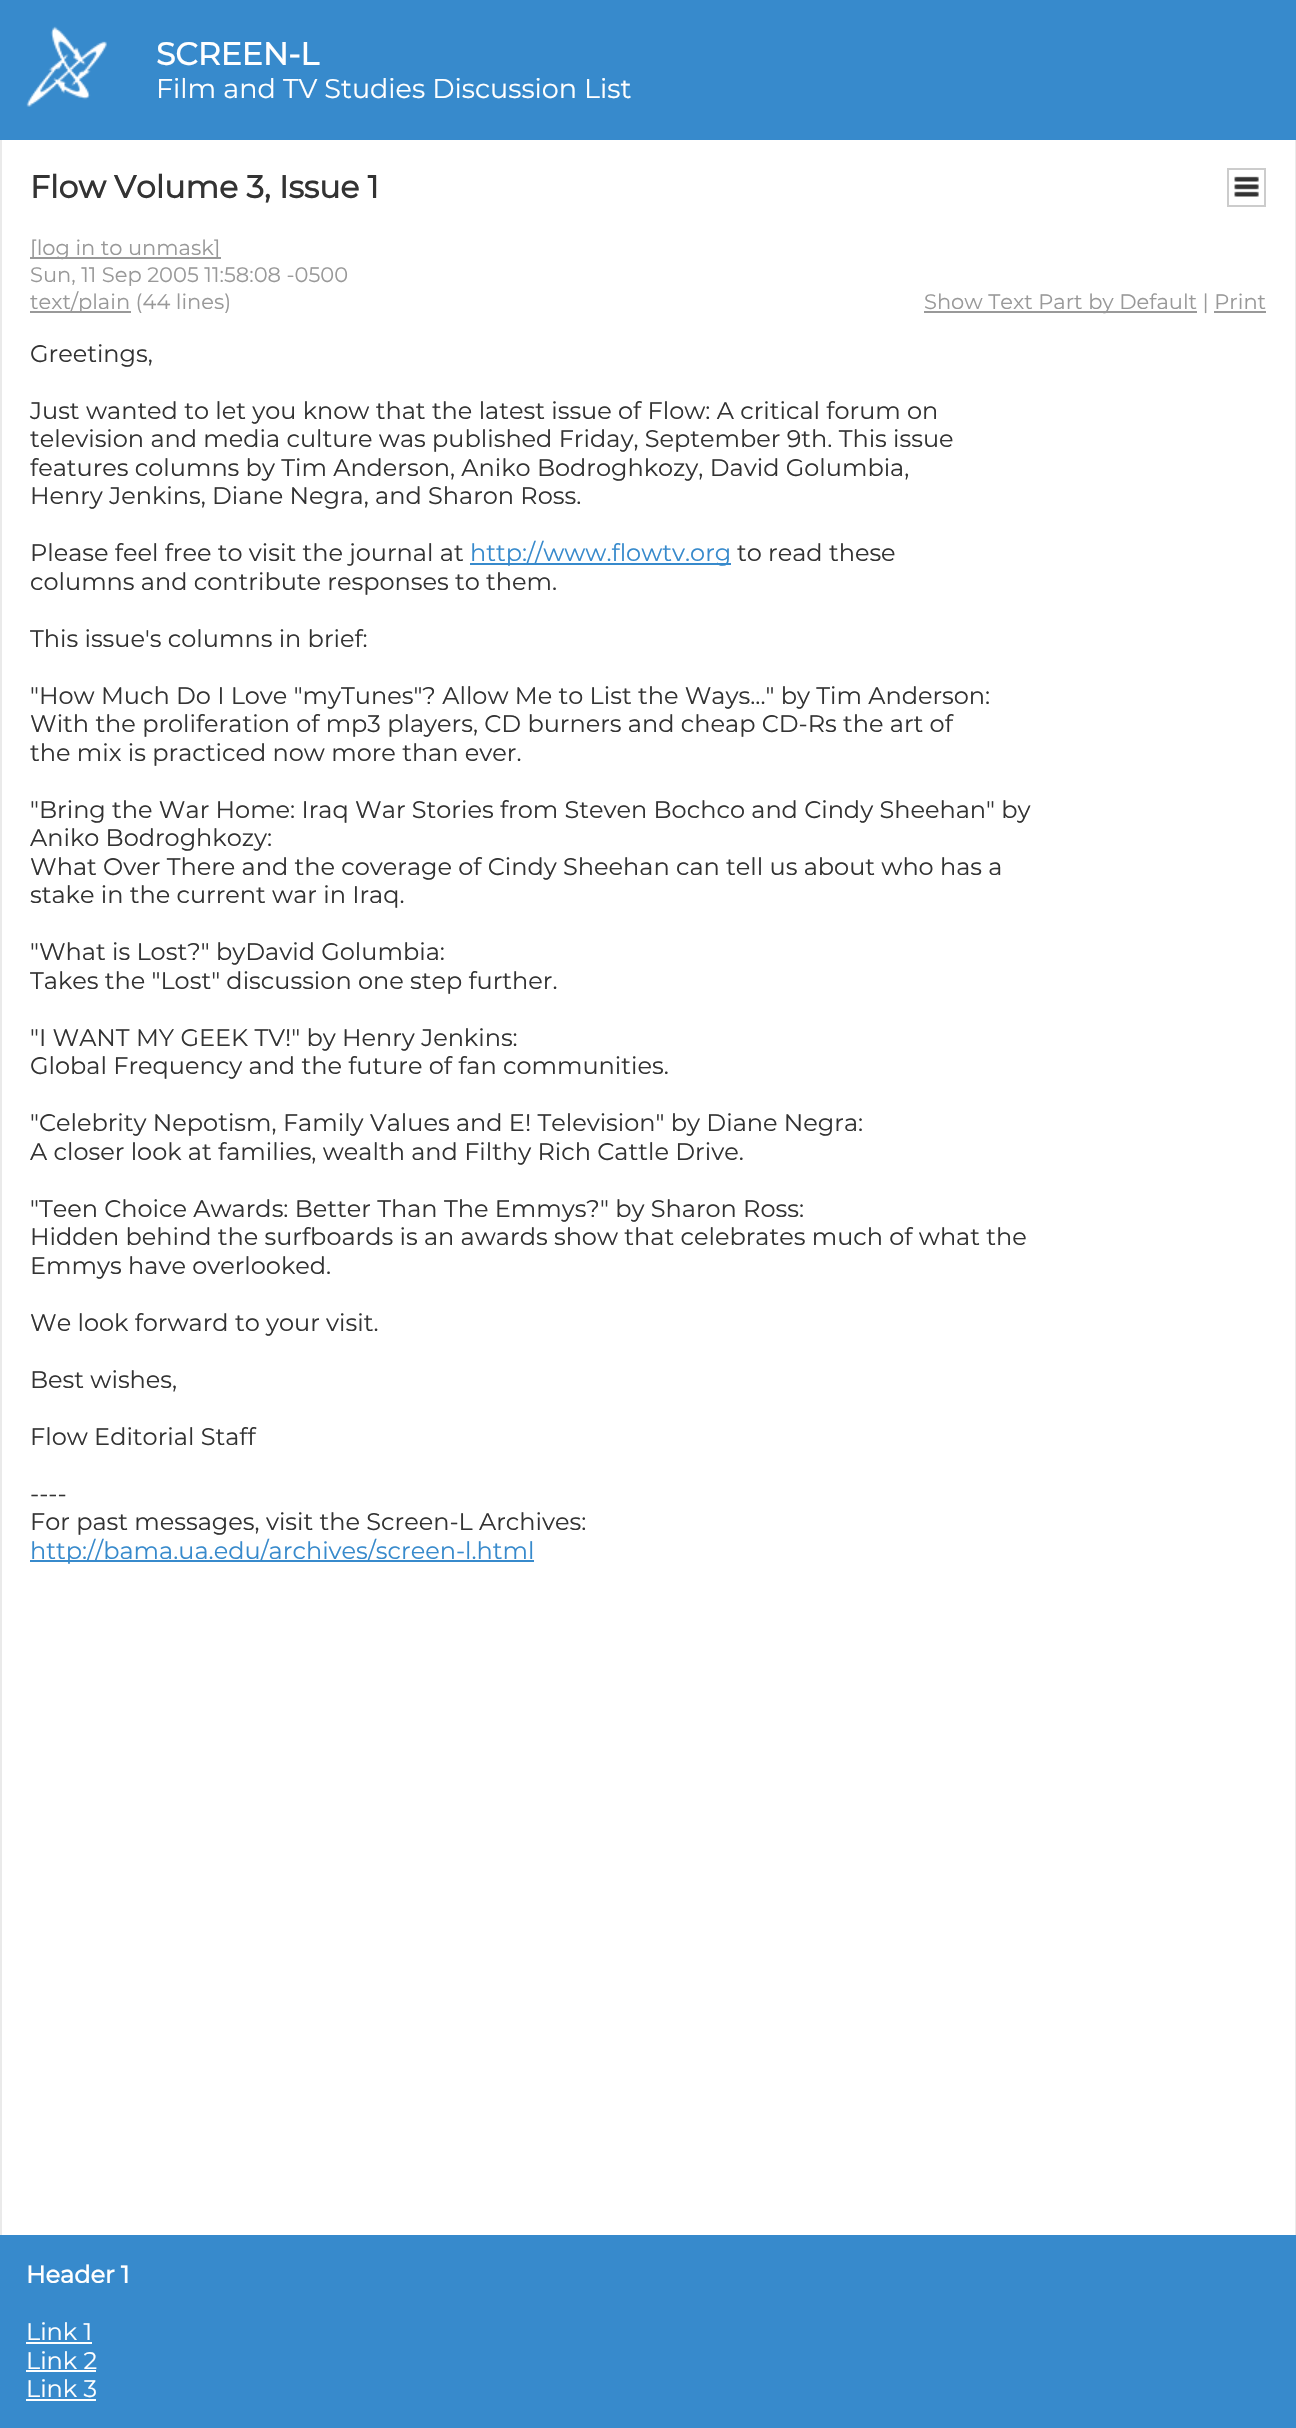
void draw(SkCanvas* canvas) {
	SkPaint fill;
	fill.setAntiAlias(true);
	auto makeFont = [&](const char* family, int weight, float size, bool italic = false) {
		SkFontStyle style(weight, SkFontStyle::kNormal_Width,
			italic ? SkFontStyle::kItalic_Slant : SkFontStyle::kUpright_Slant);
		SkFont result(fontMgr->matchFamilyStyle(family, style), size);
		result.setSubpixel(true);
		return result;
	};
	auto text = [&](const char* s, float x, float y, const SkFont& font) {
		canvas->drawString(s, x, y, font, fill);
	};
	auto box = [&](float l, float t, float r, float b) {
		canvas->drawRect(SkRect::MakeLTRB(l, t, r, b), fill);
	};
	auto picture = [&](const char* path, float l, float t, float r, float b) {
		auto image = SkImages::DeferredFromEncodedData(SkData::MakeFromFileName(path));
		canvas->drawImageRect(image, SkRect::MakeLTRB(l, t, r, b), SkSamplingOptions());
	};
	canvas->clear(0xFF378ACC);
	picture("image0.png", 26, 26, 107, 107);
	fill.setColor(0xFFFFFFFF);
	box(2, 140, 1295, 2235);
	fill.setColor(0xFFEAEAEA);
	box(1295, 140, 1296, 2235);
	box(0, 140, 2, 2235);
	fill.setStyle(SkPaint::kStroke_Style);
	fill.setStrokeWidth(2);
	fill.setColor(0xFFCCCCCC);
	canvas->drawRect(SkRect::MakeLTRB(1228, 169, 1265, 206), fill);
	picture("image1.png", 1234, 176, 1259, 197);
	fill.setStyle(SkPaint::kFill_Style);
	fill.setColor(0xFF999999);
	box(30, 257, 221, 259);
	box(30, 311, 131, 313);
	box(924, 311, 1197, 313);
	box(1214, 311, 1266, 313);
	fill.setColor(0xFF378ACC);
	box(470, 563, 731, 565);
	box(30, 1560, 534, 1562);
	fill.setColor(0xFFFFFFFF);
	box(26, 2342, 92, 2344);
	box(26, 2370, 96, 2372);
	box(26, 2399, 96, 2401);
	auto font1 = makeFont("Montserrat", 700, 31.5f);
	text("SCREEN-L", 156, 65, font1);
	auto font2 = makeFont("Montserrat", 100, 27);
	text("Film and TV Studies Discussion List", 156, 98, font2);
	fill.setColor(0xFF333333);
	text("Flow Volume 3, Issue 1", 30, 198, font1);
	auto font3 = makeFont("Montserrat", 100, 21);
	fill.setColor(0xFF999999);
	text("[log in to unmask]", 30, 255, font3);
	text("Sun, 11 Sep 2005 11:58:08 -0500", 30, 282, font3);
	text("text/plain (44 lines)", 30, 309, font3);
	text("Show Text Part by Default | Print", 924, 309, font3);
	auto font4 = makeFont("Montserrat", 100, 24);
	fill.setColor(0xFF333333);
	text("Greetings,", 30, 362, font4);
	text("Just wanted to let you know that the latest issue of Flow: A critical forum on", 30, 419, font4);
	text("television and media culture was published Friday, September 9th. This issue", 30, 447, font4);
	text("features columns by Tim Anderson, Aniko Bodroghkozy, David Golumbia,", 30, 476, font4);
	text("Henry Jenkins, Diane Negra, and Sharon Ross.", 30, 504, font4);
	text("Please feel free to visit the journal at", 30, 561, font4);
	fill.setColor(0xFF378ACC);
	text("http://www.flowtv.org", 470, 561, font4);
	fill.setColor(0xFF333333);
	text("to read these", 737, 561, font4);
	text("columns and contribute responses to them.", 30, 590, font4);
	text("This issue's columns in brief:", 30, 647, font4);
	text("\"How Much Do I Love \"myTunes\"? Allow Me to List the Ways...\" by Tim Anderson:", 30, 704, font4);
	text("With the proliferation of mp3 players, CD burners and cheap CD-Rs the art of", 30, 732, font4);
	text("the mix is practiced now more than ever.", 30, 761, font4);
	text("\"Bring the War Home: Iraq War Stories from Steven Bochco and Cindy Sheehan\" by", 30, 818, font4);
	text("Aniko Bodroghkozy:", 30, 846, font4);
	text("What Over There and the coverage of Cindy Sheehan can tell us about who has a", 30, 875, font4);
	text("stake in the current war in Iraq.", 30, 903, font4);
	text("\"What is Lost?\" byDavid Golumbia:", 30, 960, font4);
	text("Takes the \"Lost\" discussion one step further.", 30, 989, font4);
	text("\"I WANT MY GEEK TV!\" by Henry Jenkins:", 30, 1046, font4);
	text("Global Frequency and the future of fan communities.", 30, 1074, font4);
	text("\"Celebrity Nepotism, Family Values and E! Television\" by Diane Negra:", 30, 1131, font4);
	text("A closer look at families, wealth and Filthy Rich Cattle Drive.", 30, 1160, font4);
	text("\"Teen Choice Awards: Better Than The Emmys?\" by Sharon Ross:", 30, 1217, font4);
	text("Hidden behind the surfboards is an awards show that celebrates much of what the", 30, 1245, font4);
	text("Emmys have overlooked.", 30, 1274, font4);
	text("We look forward to your visit.", 30, 1331, font4);
	text("Best wishes,", 30, 1388, font4);
	text("Flow Editorial Staff", 30, 1445, font4);
	text("----", 30, 1502, font4);
	text("For past messages, visit the Screen-L Archives:", 30, 1530, font4);
	fill.setColor(0xFF378ACC);
	text("http://bama.ua.edu/archives/screen-l.html", 30, 1559, font4);
	auto font5 = makeFont("Montserrat", 700, 24);
	fill.setColor(0xFFFFFFFF);
	text("Header 1", 26, 2283, font5);
	text("Link 1", 26, 2340, font4);
	text("Link 2", 26, 2369, font4);
	text("Link 3", 26, 2397, font4);
}
